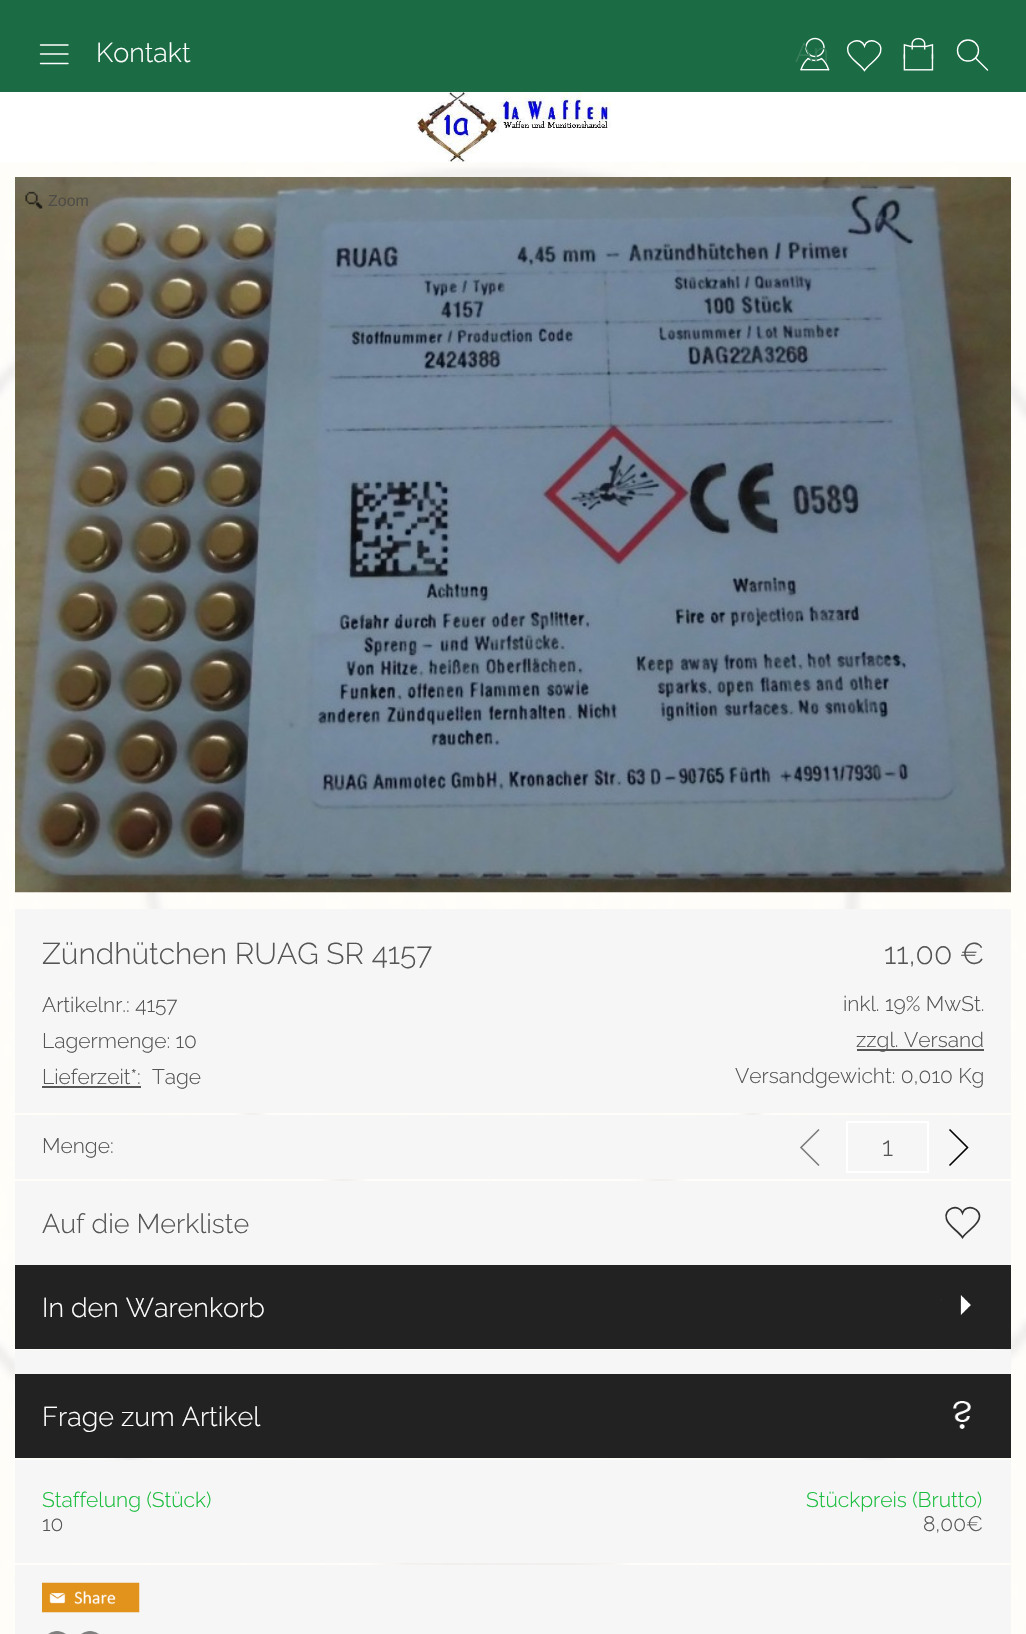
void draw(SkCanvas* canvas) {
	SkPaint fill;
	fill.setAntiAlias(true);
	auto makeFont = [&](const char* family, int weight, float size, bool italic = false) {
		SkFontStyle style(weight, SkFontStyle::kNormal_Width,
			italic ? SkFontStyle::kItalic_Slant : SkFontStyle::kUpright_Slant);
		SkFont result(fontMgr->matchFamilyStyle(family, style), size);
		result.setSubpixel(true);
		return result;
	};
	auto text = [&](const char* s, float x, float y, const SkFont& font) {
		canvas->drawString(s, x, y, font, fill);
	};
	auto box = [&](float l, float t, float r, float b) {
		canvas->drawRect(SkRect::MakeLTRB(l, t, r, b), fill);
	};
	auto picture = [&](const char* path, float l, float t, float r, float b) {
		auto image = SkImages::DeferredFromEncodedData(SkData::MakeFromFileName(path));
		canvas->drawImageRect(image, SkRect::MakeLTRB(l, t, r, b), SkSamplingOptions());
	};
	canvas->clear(0xFFFFFFFF);
	picture("image0.png", 0, 162, 1026, 1634);
	fill.setColor(0xFF1B6B44);
	box(0, 0, 1026, 92);
	fill.setStyle(SkPaint::kStroke_Style);
	fill.setStrokeWidth(1.4f);
	fill.setStrokeCap(SkPaint::kRound_Cap);
	fill.setColor(0xFFFFFFFF);
	canvas->drawPath(SkPathBuilder().moveTo(40.5f, 63.5f).lineTo(68, 63.5f).moveTo(40.5f, 54).lineTo(68, 54).moveTo(40.5f, 45).lineTo(68, 45).detach(), fill);
	picture("image1.png", 800, 37, 830, 71);
	fill.setStrokeCap(SkPaint::kButt_Cap);
	canvas->drawPath(SkPathBuilder().moveTo(864.5f, 70.5f).cubicTo(860, 64, 850.5f, 59.5f, 848, 52).cubicTo(844.5f, 41.5f, 861, 36, 864.5f, 46).cubicTo(867.5f, 36, 884, 41.5f, 880.5f, 52).cubicTo(878.5f, 59.5f, 868.5f, 64, 864.5f, 70.5f).close().detach(), fill);
	picture("image2.png", 903, 37, 934, 71);
	canvas->drawCircle(968, 50.5f, 10.5f, fill);
	fill.setStrokeCap(SkPaint::kRound_Cap);
	canvas->drawPath(SkPathBuilder().moveTo(975.5f, 58).lineTo(987.5f, 70).detach(), fill);
	picture("image3.png", 417, 92, 611, 162);
	picture("image4.png", 15, 177, 1011, 893);
	picture("image5.png", 25, 191, 43, 209);
	fill.setStyle(SkPaint::kFill_Style);
	fill.setColor(0xFFF6F6F6);
	box(15, 909, 1011, 1113);
	fill.setColor(0xFF555555);
	box(42, 1086, 141, 1088);
	box(857, 1049, 984, 1051);
	fill.setColor(0xFFF6F6F6);
	box(15, 1115, 1011, 1179);
	fill.setStyle(SkPaint::kStroke_Style);
	fill.setStrokeWidth(1.6f);
	fill.setStrokeCap(SkPaint::kButt_Cap);
	fill.setColor(0xFF7B7B7B);
	canvas->drawPath(SkPathBuilder().moveTo(819, 1129.5f).lineTo(801, 1147.5f).lineTo(819, 1165.5f).detach(), fill);
	fill.setStrokeWidth(2);
	fill.setColor(0xFFFFFFFF);
	canvas->drawRect(SkRect::MakeLTRB(847, 1122, 928, 1172), fill);
	fill.setStrokeWidth(1.6f);
	fill.setColor(0xFF000000);
	canvas->drawPath(SkPathBuilder().moveTo(949.5f, 1129.5f).lineTo(967.5f, 1147.5f).lineTo(949.5f, 1165.5f).detach(), fill);
	fill.setStyle(SkPaint::kFill_Style);
	fill.setColor(0xFFF6F6F6);
	box(15, 1181, 1011, 1265);
	fill.setStyle(SkPaint::kStroke_Style);
	fill.setStrokeWidth(1.7f);
	fill.setColor(0xFF333333);
	canvas->drawPath(SkPathBuilder().moveTo(962.5f, 1237.5f).cubicTo(958.5f, 1231, 948.5f, 1226.5f, 946.5f, 1219).cubicTo(943, 1208.5f, 959, 1203, 962.5f, 1213).cubicTo(966, 1203, 982.5f, 1208.5f, 979, 1219).cubicTo(976.5f, 1226.5f, 967, 1231, 962.5f, 1237.5f).close().detach(), fill);
	fill.setStyle(SkPaint::kFill_Style);
	fill.setColor(0xFF222222);
	box(15, 1265, 1011, 1349);
	picture("image6.png", 940, 1295, 971, 1315);
	fill.setColor(0xFFF6F6F6);
	box(15, 1350, 1011, 1374);
	fill.setColor(0xFF222222);
	box(15, 1374, 1011, 1458);
	picture("image7.png", 953, 1401, 971, 1429);
	fill.setColor(0xFFF6F6F6);
	box(15, 1460, 1011, 1563);
	box(15, 1565, 1011, 1634);
	picture("image8.png", 42, 1582, 140, 1613);
	picture("image9.png", 48, 1631, 66, 1634);
	picture("image9.png", 81, 1631, 99, 1634);
	auto font1 = makeFont("Raleway", 300, 27);
	fill.setColor(0xFFFFFFFF);
	text("Kontakt", 96, 62, font1);
	fill.setColor(0xFF387E5C);
	text("An", 795, 62, font1);
	auto font2 = makeFont("Liberation Sans", 400, 16);
	fill.setColor(0xFF4F4D47);
	text("Zoom", 48, 206, font2);
	auto font3 = makeFont("Raleway", 300, 30);
	fill.setColor(0xFF555555);
	text("Zündhütchen RUAG SR 4157", 42, 964, font3);
	auto font4 = makeFont("Raleway", 300, 21);
	text("Artikelnr.: 4157", 42, 1012, font4);
	text("Lagermenge: 10", 42, 1048, font4);
	text("Lieferzeit*:", 42, 1084, font4);
	text("Tage", 152, 1084, font4);
	text("11,00 €", 884, 964, font3);
	text("inkl. 19% MwSt.", 843, 1011, font4);
	text("zzgl. Versand", 856, 1047, font4);
	text("Versandgewicht: 0,010 Kg", 735, 1083, font4);
	text("Menge:", 42, 1153, font4);
	text("1", 882, 1156, font1);
	text("Auf die Merkliste", 42, 1233, font1);
	fill.setColor(0xFFFFFFFF);
	text("In den Warenkorb", 42, 1317, font1);
	text("Frage zum Artikel", 42, 1426, font1);
	fill.setColor(0xFF19BD3D);
	text("Staffelung (Stück)", 42, 1507, font4);
	text("Stückpreis (Brutto)", 806, 1507, font4);
	fill.setColor(0xFF555555);
	text("10", 42, 1531, font4);
	text("8,00€", 923, 1531, font4);
}
